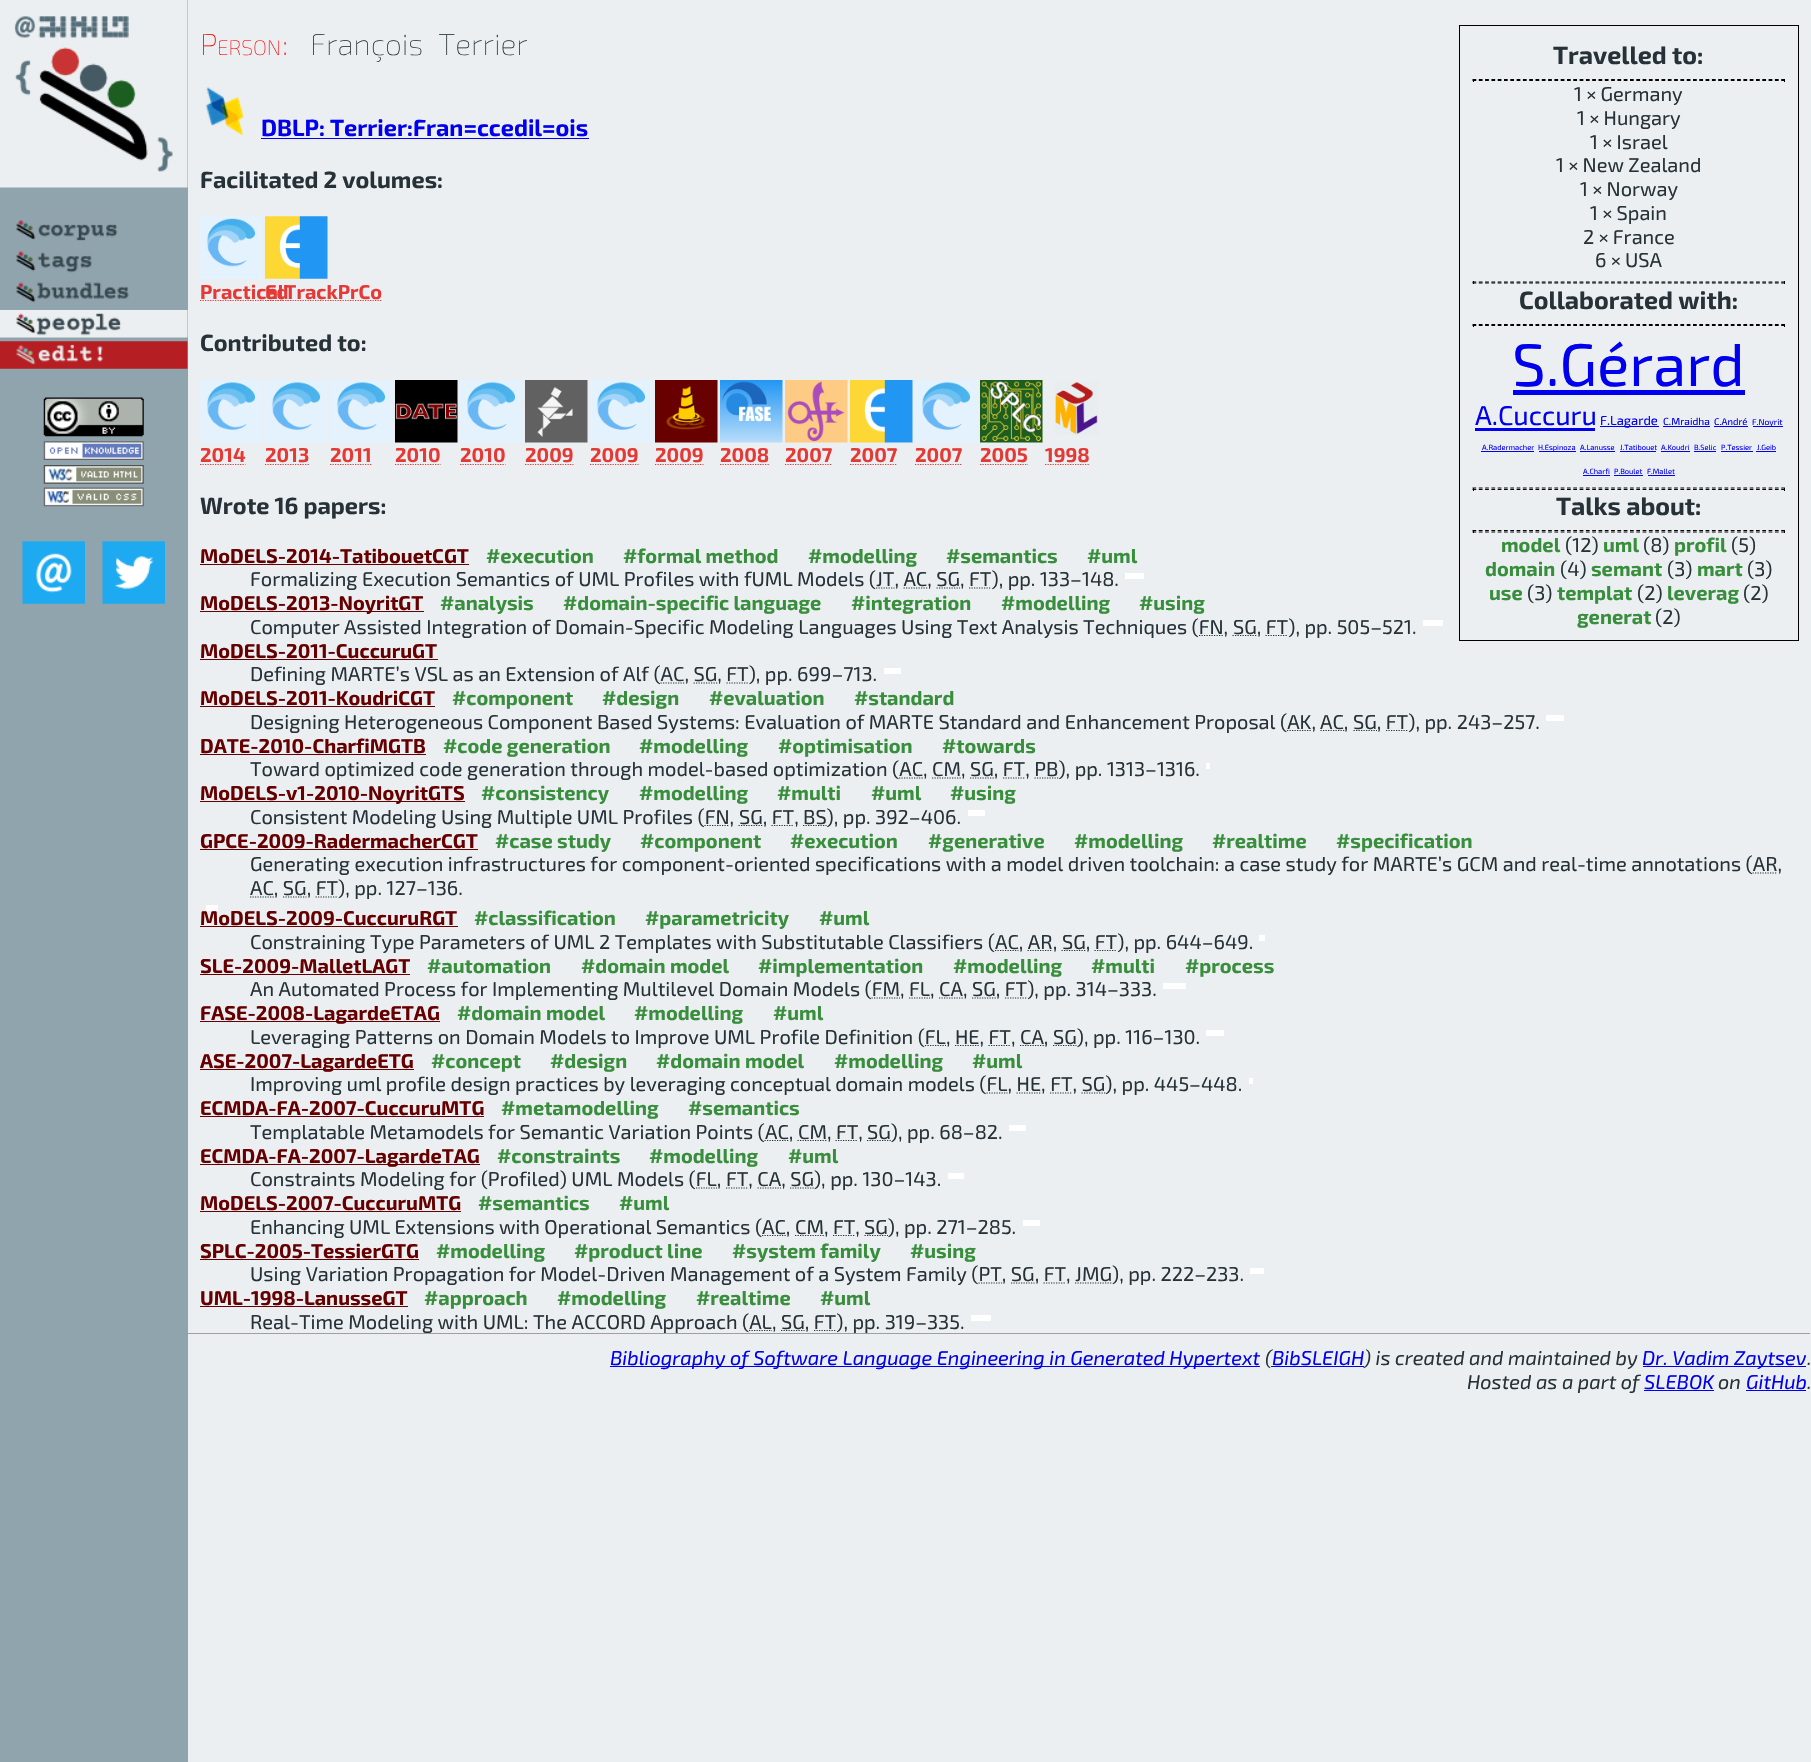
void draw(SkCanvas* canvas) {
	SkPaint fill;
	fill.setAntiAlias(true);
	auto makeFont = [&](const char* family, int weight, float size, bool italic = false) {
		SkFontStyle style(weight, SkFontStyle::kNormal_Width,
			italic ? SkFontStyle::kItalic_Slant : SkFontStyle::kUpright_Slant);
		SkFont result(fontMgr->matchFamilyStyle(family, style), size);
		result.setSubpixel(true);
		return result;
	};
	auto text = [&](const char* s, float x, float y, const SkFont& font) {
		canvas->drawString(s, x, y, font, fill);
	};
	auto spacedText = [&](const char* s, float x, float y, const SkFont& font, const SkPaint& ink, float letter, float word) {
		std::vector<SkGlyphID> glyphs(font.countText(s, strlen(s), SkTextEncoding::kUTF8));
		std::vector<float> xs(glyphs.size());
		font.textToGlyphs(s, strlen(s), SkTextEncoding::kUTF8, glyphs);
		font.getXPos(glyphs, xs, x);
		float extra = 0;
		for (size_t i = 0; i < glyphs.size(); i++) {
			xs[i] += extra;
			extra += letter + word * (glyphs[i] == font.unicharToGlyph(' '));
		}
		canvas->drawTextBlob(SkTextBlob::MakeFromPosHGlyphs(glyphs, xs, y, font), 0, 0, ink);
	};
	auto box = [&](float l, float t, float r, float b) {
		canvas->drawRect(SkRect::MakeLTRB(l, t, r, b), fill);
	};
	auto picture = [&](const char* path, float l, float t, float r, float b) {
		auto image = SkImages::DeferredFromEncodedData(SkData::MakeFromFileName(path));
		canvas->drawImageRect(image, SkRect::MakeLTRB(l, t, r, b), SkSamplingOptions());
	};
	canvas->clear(0xFFECEFF1);
	fill.setColor(0xFF90A4AE);
	box(0, 0, 188, 1762);
	picture("image0.png", 0, 0, 188, 188);
	picture("image1.png", 16, 219, 118, 241);
	picture("image2.png", 16, 251, 92, 273);
	picture("image3.png", 16, 282, 129, 303);
	picture("image4.png", 0, 310, 188, 338);
	picture("image5.png", 0, 341, 188, 369);
	picture("image6.png", 43, 397, 144, 437);
	picture("image7.png", 43, 441, 144, 460);
	picture("image8.png", 43, 465, 144, 484);
	picture("image9.png", 43, 487, 144, 507);
	picture("image10.png", 22, 541, 85, 604);
	picture("image11.png", 102, 541, 165, 604);
	fill.setStyle(SkPaint::kStroke_Style);
	fill.setStrokeWidth(1);
	fill.setColor(0xFF000000);
	canvas->drawRect(SkRect::MakeLTRB(1459.5f, 25.5f, 1798.5f, 640.5f), fill);
	fill.setStrokeWidth(1.2f);
	fill.setPathEffect(SkDashPathEffect::Make({{3.75f, 2.55f}}, 0));
	canvas->drawPath(SkPathBuilder().moveTo(1472.5f, 79.5f).lineTo(1785, 79.5f).detach(), fill);
	fill.setPathEffect(nullptr);
	fill.setStyle(SkPaint::kFill_Style);
	box(1784, 79, 1785, 82);
	fill.setStyle(SkPaint::kStroke_Style);
	fill.setPathEffect(SkDashPathEffect::Make({{3.75f, 2.55f}}, 0));
	canvas->drawPath(SkPathBuilder().moveTo(1472.5f, 80.5f).lineTo(1785, 80.5f).detach(), fill);
	fill.setPathEffect(nullptr);
	fill.setStyle(SkPaint::kFill_Style);
	box(1473, 79, 1474, 82);
	fill.setStyle(SkPaint::kStroke_Style);
	fill.setPathEffect(SkDashPathEffect::Make({{3.75f, 2.55f}}, 0));
	canvas->drawPath(SkPathBuilder().moveTo(1472.5f, 282).lineTo(1785, 282).detach(), fill);
	fill.setPathEffect(nullptr);
	fill.setStyle(SkPaint::kFill_Style);
	box(1784, 281, 1785, 284);
	fill.setStyle(SkPaint::kStroke_Style);
	fill.setPathEffect(SkDashPathEffect::Make({{3.75f, 2.55f}}, 0));
	canvas->drawPath(SkPathBuilder().moveTo(1472.5f, 283).lineTo(1785, 283).detach(), fill);
	fill.setPathEffect(nullptr);
	fill.setStyle(SkPaint::kFill_Style);
	box(1473, 281, 1474, 284);
	fill.setStyle(SkPaint::kStroke_Style);
	fill.setPathEffect(SkDashPathEffect::Make({{3.75f, 2.55f}}, 0));
	canvas->drawPath(SkPathBuilder().moveTo(1472.5f, 324.5f).lineTo(1785, 324.5f).detach(), fill);
	fill.setPathEffect(nullptr);
	fill.setStyle(SkPaint::kFill_Style);
	box(1784, 324, 1785, 327);
	fill.setStyle(SkPaint::kStroke_Style);
	fill.setPathEffect(SkDashPathEffect::Make({{3.75f, 2.55f}}, 0));
	canvas->drawPath(SkPathBuilder().moveTo(1472.5f, 325.5f).lineTo(1785, 325.5f).detach(), fill);
	fill.setPathEffect(nullptr);
	fill.setStyle(SkPaint::kFill_Style);
	box(1473, 324, 1474, 327);
	fill.setColor(0xFF0000EE);
	box(1513, 390, 1745, 395);
	box(1475, 428, 1595, 431);
	box(1600, 426, 1659, 427);
	box(1663, 426, 1710, 427);
	box(1714, 426, 1748, 427);
	box(1753, 426, 1783, 427);
	box(1481, 451, 1534, 452);
	box(1539, 451, 1576, 452);
	box(1580, 451, 1615, 452);
	box(1620, 451, 1656, 452);
	box(1661, 451, 1690, 452);
	box(1694, 451, 1716, 452);
	box(1721, 451, 1753, 452);
	box(1756, 451, 1776, 452);
	box(1583, 475, 1610, 476);
	box(1614, 475, 1643, 476);
	box(1648, 475, 1675, 476);
	fill.setStyle(SkPaint::kStroke_Style);
	fill.setColor(0xFF000000);
	fill.setPathEffect(SkDashPathEffect::Make({{3.75f, 2.55f}}, 0));
	canvas->drawPath(SkPathBuilder().moveTo(1472.5f, 488).lineTo(1785, 488).detach(), fill);
	fill.setPathEffect(nullptr);
	fill.setStyle(SkPaint::kFill_Style);
	box(1784, 488, 1785, 491);
	fill.setStyle(SkPaint::kStroke_Style);
	fill.setPathEffect(SkDashPathEffect::Make({{3.75f, 2.55f}}, 0));
	canvas->drawPath(SkPathBuilder().moveTo(1472.5f, 489.5f).lineTo(1785, 489.5f).detach(), fill);
	fill.setPathEffect(nullptr);
	fill.setStyle(SkPaint::kFill_Style);
	box(1473, 488, 1474, 491);
	fill.setStyle(SkPaint::kStroke_Style);
	fill.setPathEffect(SkDashPathEffect::Make({{3.75f, 2.55f}}, 0));
	canvas->drawPath(SkPathBuilder().moveTo(1472.5f, 530.5f).lineTo(1785, 530.5f).detach(), fill);
	fill.setPathEffect(nullptr);
	fill.setStyle(SkPaint::kFill_Style);
	box(1784, 530, 1785, 533);
	fill.setStyle(SkPaint::kStroke_Style);
	fill.setPathEffect(SkDashPathEffect::Make({{3.75f, 2.55f}}, 0));
	canvas->drawPath(SkPathBuilder().moveTo(1472.5f, 532).lineTo(1785, 532).detach(), fill);
	fill.setPathEffect(nullptr);
	fill.setStyle(SkPaint::kFill_Style);
	box(1473, 530, 1474, 533);
	picture("image12.png", 206, 87, 244, 136);
	fill.setColor(0xFF0000EE);
	box(261, 138, 589, 139);
	picture("image13.png", 200, 216, 263, 279);
	fill.setStyle(SkPaint::kStroke_Style);
	fill.setColor(0xFFE53935);
	fill.setPathEffect(SkDashPathEffect::Make({{1.25f, 1.25f}}, 0));
	canvas->drawPath(SkPathBuilder().moveTo(200, 300.5f).lineTo(382, 300.5f).detach(), fill);
	fill.setPathEffect(nullptr);
	picture("image14.png", 265, 216, 328, 279);
	fill.setPathEffect(SkDashPathEffect::Make({{1.25f, 1.25f}}, 0));
	canvas->drawPath(SkPathBuilder().moveTo(265, 300.5f).lineTo(288.5f, 300.5f).detach(), fill);
	fill.setPathEffect(nullptr);
	picture("image15.png", 200, 380, 263, 443);
	fill.setPathEffect(SkDashPathEffect::Make({{1.25f, 1.25f}}, 0));
	canvas->drawPath(SkPathBuilder().moveTo(200, 464.5f).lineTo(245.5f, 464.5f).detach(), fill);
	fill.setPathEffect(nullptr);
	picture("image16.png", 265, 380, 328, 443);
	fill.setPathEffect(SkDashPathEffect::Make({{1.25f, 1.25f}}, 0));
	canvas->drawPath(SkPathBuilder().moveTo(265, 464.5f).lineTo(309, 464.5f).detach(), fill);
	fill.setPathEffect(nullptr);
	picture("image16.png", 330, 380, 393, 443);
	fill.setPathEffect(SkDashPathEffect::Make({{1.25f, 1.25f}}, 0));
	canvas->drawPath(SkPathBuilder().moveTo(330, 464.5f).lineTo(371.5f, 464.5f).detach(), fill);
	fill.setPathEffect(nullptr);
	picture("image17.png", 395, 380, 458, 443);
	fill.setPathEffect(SkDashPathEffect::Make({{1.25f, 1.25f}}, 0));
	canvas->drawPath(SkPathBuilder().moveTo(395, 464.5f).lineTo(440.5f, 464.5f).detach(), fill);
	fill.setPathEffect(nullptr);
	picture("image18.png", 460, 380, 523, 443);
	fill.setPathEffect(SkDashPathEffect::Make({{1.25f, 1.25f}}, 0));
	canvas->drawPath(SkPathBuilder().moveTo(460, 464.5f).lineTo(505.5f, 464.5f).detach(), fill);
	fill.setPathEffect(nullptr);
	picture("image19.png", 525, 380, 588, 443);
	fill.setPathEffect(SkDashPathEffect::Make({{1.25f, 1.25f}}, 0));
	canvas->drawPath(SkPathBuilder().moveTo(525, 464.5f).lineTo(573.5f, 464.5f).detach(), fill);
	fill.setPathEffect(nullptr);
	picture("image16.png", 590, 380, 653, 443);
	fill.setPathEffect(SkDashPathEffect::Make({{1.25f, 1.25f}}, 0));
	canvas->drawPath(SkPathBuilder().moveTo(590, 464.5f).lineTo(638.5f, 464.5f).detach(), fill);
	fill.setPathEffect(nullptr);
	picture("image20.png", 655, 380, 718, 443);
	fill.setPathEffect(SkDashPathEffect::Make({{1.25f, 1.25f}}, 0));
	canvas->drawPath(SkPathBuilder().moveTo(655, 464.5f).lineTo(703.5f, 464.5f).detach(), fill);
	fill.setPathEffect(nullptr);
	picture("image21.png", 720, 380, 783, 443);
	fill.setPathEffect(SkDashPathEffect::Make({{1.25f, 1.25f}}, 0));
	canvas->drawPath(SkPathBuilder().moveTo(720, 464.5f).lineTo(769.5f, 464.5f).detach(), fill);
	fill.setPathEffect(nullptr);
	picture("image22.png", 785, 380, 848, 443);
	fill.setPathEffect(SkDashPathEffect::Make({{1.25f, 1.25f}}, 0));
	canvas->drawPath(SkPathBuilder().moveTo(785, 464.5f).lineTo(832.5f, 464.5f).detach(), fill);
	fill.setPathEffect(nullptr);
	picture("image23.png", 850, 380, 913, 443);
	fill.setPathEffect(SkDashPathEffect::Make({{1.25f, 1.25f}}, 0));
	canvas->drawPath(SkPathBuilder().moveTo(850, 464.5f).lineTo(897.5f, 464.5f).detach(), fill);
	fill.setPathEffect(nullptr);
	picture("image16.png", 915, 380, 978, 443);
	fill.setPathEffect(SkDashPathEffect::Make({{1.25f, 1.25f}}, 0));
	canvas->drawPath(SkPathBuilder().moveTo(915, 464.5f).lineTo(962.5f, 464.5f).detach(), fill);
	fill.setPathEffect(nullptr);
	picture("image24.png", 980, 380, 1043, 443);
	fill.setPathEffect(SkDashPathEffect::Make({{1.25f, 1.25f}}, 0));
	canvas->drawPath(SkPathBuilder().moveTo(980, 464.5f).lineTo(1028, 464.5f).detach(), fill);
	fill.setPathEffect(nullptr);
	picture("image25.png", 1055, 381, 1098, 435);
	fill.setPathEffect(SkDashPathEffect::Make({{1.25f, 1.25f}}, 0));
	canvas->drawPath(SkPathBuilder().moveTo(1045, 464.5f).lineTo(1089.5f, 464.5f).detach(), fill);
	fill.setPathEffect(nullptr);
	fill.setStyle(SkPaint::kFill_Style);
	fill.setColor(0xFF660000);
	box(200, 564, 469, 565);
	fill.setStyle(SkPaint::kStroke_Style);
	fill.setColor(0xFF263238);
	fill.setPathEffect(SkDashPathEffect::Make({{1.25f, 1.25f}}, 0));
	canvas->drawPath(SkPathBuilder().moveTo(876, 588).lineTo(894.5f, 588).moveTo(903.5f, 588).lineTo(927.5f, 588).detach(), fill);
	fill.setPathEffect(nullptr);
	fill.setPathEffect(SkDashPathEffect::Make({{1.25f, 1.25f}}, 0));
	canvas->drawPath(SkPathBuilder().moveTo(936.5f, 588).lineTo(960, 588).moveTo(969, 588).lineTo(991.5f, 588).detach(), fill);
	fill.setPathEffect(nullptr);
	fill.setStyle(SkPaint::kFill_Style);
	fill.setColor(0xFFFFFFFF);
	box(1125, 573, 1144, 579);
	fill.setColor(0xFF660000);
	box(200, 611, 424, 612);
	fill.setStyle(SkPaint::kStroke_Style);
	fill.setColor(0xFF263238);
	fill.setPathEffect(SkDashPathEffect::Make({{1.25f, 1.25f}}, 0));
	canvas->drawPath(SkPathBuilder().moveTo(1199, 635.5f).lineTo(1223.5f, 635.5f).moveTo(1232.5f, 635.5f).lineTo(1256.5f, 635.5f).detach(), fill);
	fill.setPathEffect(nullptr);
	fill.setPathEffect(SkDashPathEffect::Make({{1.25f, 1.25f}}, 0));
	canvas->drawPath(SkPathBuilder().moveTo(1265.5f, 635.5f).lineTo(1288, 635.5f).detach(), fill);
	fill.setPathEffect(nullptr);
	fill.setStyle(SkPaint::kFill_Style);
	fill.setColor(0xFFFFFFFF);
	box(1423, 620, 1443, 626);
	fill.setColor(0xFF660000);
	box(200, 659, 438, 660);
	fill.setStyle(SkPaint::kStroke_Style);
	fill.setColor(0xFF263238);
	fill.setPathEffect(SkDashPathEffect::Make({{1.25f, 1.25f}}, 0));
	canvas->drawPath(SkPathBuilder().moveTo(660.5f, 683).lineTo(684.5f, 683).moveTo(693.5f, 683).lineTo(717.5f, 683).detach(), fill);
	fill.setPathEffect(nullptr);
	fill.setPathEffect(SkDashPathEffect::Make({{1.25f, 1.25f}}, 0));
	canvas->drawPath(SkPathBuilder().moveTo(726.5f, 683).lineTo(748.5f, 683).detach(), fill);
	fill.setPathEffect(nullptr);
	fill.setStyle(SkPaint::kFill_Style);
	fill.setColor(0xFFFFFFFF);
	box(884, 668, 901, 674);
	fill.setColor(0xFF660000);
	box(200, 706, 435, 707);
	fill.setStyle(SkPaint::kStroke_Style);
	fill.setColor(0xFF263238);
	fill.setPathEffect(SkDashPathEffect::Make({{1.25f, 1.25f}}, 0));
	canvas->drawPath(SkPathBuilder().moveTo(1353.5f, 730.5f).lineTo(1377, 730.5f).detach(), fill);
	fill.setPathEffect(nullptr);
	fill.setPathEffect(SkDashPathEffect::Make({{1.25f, 1.25f}}, 0));
	canvas->drawPath(SkPathBuilder().moveTo(1287, 730.5f).lineTo(1311.5f, 730.5f).moveTo(1320.5f, 730.5f).lineTo(1344.5f, 730.5f).detach(), fill);
	fill.setPathEffect(nullptr);
	fill.setPathEffect(SkDashPathEffect::Make({{1.25f, 1.25f}}, 0));
	canvas->drawPath(SkPathBuilder().moveTo(1386, 730.5f).lineTo(1408.5f, 730.5f).detach(), fill);
	fill.setPathEffect(nullptr);
	fill.setStyle(SkPaint::kFill_Style);
	fill.setColor(0xFFFFFFFF);
	box(1546, 715, 1564, 721);
	fill.setColor(0xFF660000);
	box(200, 754, 426, 755);
	fill.setStyle(SkPaint::kStroke_Style);
	fill.setColor(0xFF263238);
	fill.setPathEffect(SkDashPathEffect::Make({{1.25f, 1.25f}}, 0));
	canvas->drawPath(SkPathBuilder().moveTo(899, 778).lineTo(923, 778).moveTo(932, 778).lineTo(961, 778).detach(), fill);
	fill.setPathEffect(nullptr);
	fill.setPathEffect(SkDashPathEffect::Make({{1.25f, 1.25f}}, 0));
	canvas->drawPath(SkPathBuilder().moveTo(970, 778).lineTo(994, 778).moveTo(1003, 778).lineTo(1025.5f, 778).detach(), fill);
	fill.setPathEffect(nullptr);
	fill.setPathEffect(SkDashPathEffect::Make({{1.25f, 1.25f}}, 0));
	canvas->drawPath(SkPathBuilder().moveTo(1034.5f, 778).lineTo(1058.5f, 778).detach(), fill);
	fill.setPathEffect(nullptr);
	fill.setStyle(SkPaint::kFill_Style);
	fill.setColor(0xFFFFFFFF);
	box(1206, 763, 1210, 769);
	fill.setColor(0xFF660000);
	box(200, 801, 465, 802);
	fill.setStyle(SkPaint::kStroke_Style);
	fill.setColor(0xFF263238);
	fill.setPathEffect(SkDashPathEffect::Make({{1.25f, 1.25f}}, 0));
	canvas->drawPath(SkPathBuilder().moveTo(704.5f, 825.5f).lineTo(729.5f, 825.5f).moveTo(738.5f, 825.5f).lineTo(762.5f, 825.5f).detach(), fill);
	fill.setPathEffect(nullptr);
	fill.setPathEffect(SkDashPathEffect::Make({{1.25f, 1.25f}}, 0));
	canvas->drawPath(SkPathBuilder().moveTo(771.5f, 825.5f).lineTo(794, 825.5f).moveTo(803, 825.5f).lineTo(826.5f, 825.5f).detach(), fill);
	fill.setPathEffect(nullptr);
	fill.setStyle(SkPaint::kFill_Style);
	fill.setColor(0xFFFFFFFF);
	box(968, 810, 985, 816);
	fill.setColor(0xFF660000);
	box(200, 849, 478, 850);
	fill.setStyle(SkPaint::kStroke_Style);
	fill.setColor(0xFF263238);
	fill.setPathEffect(SkDashPathEffect::Make({{1.25f, 1.25f}}, 0));
	canvas->drawPath(SkPathBuilder().moveTo(1752.5f, 873).lineTo(1777.5f, 873).detach(), fill);
	fill.setPathEffect(nullptr);
	fill.setPathEffect(SkDashPathEffect::Make({{1.25f, 1.25f}}, 0));
	canvas->drawPath(SkPathBuilder().moveTo(250, 897).lineTo(274, 897).detach(), fill);
	fill.setPathEffect(nullptr);
	fill.setPathEffect(SkDashPathEffect::Make({{1.25f, 1.25f}}, 0));
	canvas->drawPath(SkPathBuilder().moveTo(283, 897).lineTo(306.5f, 897).moveTo(315.5f, 897).lineTo(338, 897).detach(), fill);
	fill.setPathEffect(nullptr);
	fill.setStyle(SkPaint::kFill_Style);
	fill.setColor(0xFF660000);
	box(200, 926, 458, 927);
	fill.setStyle(SkPaint::kStroke_Style);
	fill.setColor(0xFF263238);
	fill.setPathEffect(SkDashPathEffect::Make({{1.25f, 1.25f}}, 0));
	canvas->drawPath(SkPathBuilder().moveTo(995, 950.5f).lineTo(1018.5f, 950.5f).detach(), fill);
	fill.setPathEffect(nullptr);
	fill.setPathEffect(SkDashPathEffect::Make({{1.25f, 1.25f}}, 0));
	canvas->drawPath(SkPathBuilder().moveTo(1027.5f, 950.5f).lineTo(1052.5f, 950.5f).moveTo(1061.5f, 950.5f).lineTo(1085.5f, 950.5f).detach(), fill);
	fill.setPathEffect(nullptr);
	fill.setPathEffect(SkDashPathEffect::Make({{1.25f, 1.25f}}, 0));
	canvas->drawPath(SkPathBuilder().moveTo(1094.5f, 950.5f).lineTo(1117, 950.5f).detach(), fill);
	fill.setPathEffect(nullptr);
	fill.setStyle(SkPaint::kFill_Style);
	fill.setColor(0xFFFFFFFF);
	box(1259, 935, 1265, 941);
	fill.setColor(0xFF660000);
	box(200, 974, 410, 975);
	fill.setStyle(SkPaint::kStroke_Style);
	fill.setColor(0xFF263238);
	fill.setPathEffect(SkDashPathEffect::Make({{1.25f, 1.25f}}, 0));
	canvas->drawPath(SkPathBuilder().moveTo(871.5f, 998).lineTo(900, 998).moveTo(909, 998).lineTo(930, 998).detach(), fill);
	fill.setPathEffect(nullptr);
	fill.setPathEffect(SkDashPathEffect::Make({{1.25f, 1.25f}}, 0));
	canvas->drawPath(SkPathBuilder().moveTo(939, 998).lineTo(963, 998).moveTo(972, 998).lineTo(996, 998).detach(), fill);
	fill.setPathEffect(nullptr);
	fill.setPathEffect(SkDashPathEffect::Make({{1.25f, 1.25f}}, 0));
	canvas->drawPath(SkPathBuilder().moveTo(1005, 998).lineTo(1027, 998).detach(), fill);
	fill.setPathEffect(nullptr);
	fill.setStyle(SkPaint::kFill_Style);
	fill.setColor(0xFFFFFFFF);
	box(1163, 983, 1186, 989);
	fill.setColor(0xFF660000);
	box(200, 1021, 440, 1022);
	fill.setStyle(SkPaint::kStroke_Style);
	fill.setColor(0xFF263238);
	fill.setPathEffect(SkDashPathEffect::Make({{1.25f, 1.25f}}, 0));
	canvas->drawPath(SkPathBuilder().moveTo(1053, 1045.5f).lineTo(1076.5f, 1045.5f).detach(), fill);
	fill.setPathEffect(nullptr);
	fill.setPathEffect(SkDashPathEffect::Make({{1.25f, 1.25f}}, 0));
	canvas->drawPath(SkPathBuilder().moveTo(925, 1045.5f).lineTo(946, 1045.5f).moveTo(955, 1045.5f).lineTo(979.5f, 1045.5f).detach(), fill);
	fill.setPathEffect(nullptr);
	fill.setPathEffect(SkDashPathEffect::Make({{1.25f, 1.25f}}, 0));
	canvas->drawPath(SkPathBuilder().moveTo(988.5f, 1045.5f).lineTo(1011, 1045.5f).moveTo(1020, 1045.5f).lineTo(1044, 1045.5f).detach(), fill);
	fill.setPathEffect(nullptr);
	fill.setStyle(SkPaint::kFill_Style);
	fill.setColor(0xFFFFFFFF);
	box(1206, 1030, 1224, 1036);
	fill.setColor(0xFF660000);
	box(200, 1069, 414, 1070);
	fill.setStyle(SkPaint::kStroke_Style);
	fill.setColor(0xFF263238);
	fill.setPathEffect(SkDashPathEffect::Make({{1.25f, 1.25f}}, 0));
	canvas->drawPath(SkPathBuilder().moveTo(986.5f, 1093).lineTo(1007.5f, 1093).moveTo(1016.5f, 1093).lineTo(1041, 1093).detach(), fill);
	fill.setPathEffect(nullptr);
	fill.setPathEffect(SkDashPathEffect::Make({{1.25f, 1.25f}}, 0));
	canvas->drawPath(SkPathBuilder().moveTo(1050, 1093).lineTo(1072.5f, 1093).moveTo(1081.5f, 1093).lineTo(1105.5f, 1093).detach(), fill);
	fill.setPathEffect(nullptr);
	fill.setStyle(SkPaint::kFill_Style);
	fill.setColor(0xFFFFFFFF);
	box(1249, 1078, 1253, 1084);
	fill.setColor(0xFF660000);
	box(200, 1116, 484, 1117);
	fill.setStyle(SkPaint::kStroke_Style);
	fill.setColor(0xFF263238);
	fill.setPathEffect(SkDashPathEffect::Make({{1.25f, 1.25f}}, 0));
	canvas->drawPath(SkPathBuilder().moveTo(764.5f, 1140.5f).lineTo(788.5f, 1140.5f).detach(), fill);
	fill.setPathEffect(nullptr);
	fill.setPathEffect(SkDashPathEffect::Make({{1.25f, 1.25f}}, 0));
	canvas->drawPath(SkPathBuilder().moveTo(797.5f, 1140.5f).lineTo(826.5f, 1140.5f).detach(), fill);
	fill.setPathEffect(nullptr);
	fill.setPathEffect(SkDashPathEffect::Make({{1.25f, 1.25f}}, 0));
	canvas->drawPath(SkPathBuilder().moveTo(835.5f, 1140.5f).lineTo(858, 1140.5f).moveTo(867, 1140.5f).lineTo(891, 1140.5f).detach(), fill);
	fill.setPathEffect(nullptr);
	fill.setStyle(SkPaint::kFill_Style);
	fill.setColor(0xFFFFFFFF);
	box(1009, 1125, 1026, 1131);
	fill.setColor(0xFF660000);
	box(200, 1164, 480, 1165);
	fill.setStyle(SkPaint::kStroke_Style);
	fill.setColor(0xFF263238);
	fill.setPathEffect(SkDashPathEffect::Make({{1.25f, 1.25f}}, 0));
	canvas->drawPath(SkPathBuilder().moveTo(696, 1188).lineTo(717, 1188).moveTo(726, 1188).lineTo(748.5f, 1188).detach(), fill);
	fill.setPathEffect(nullptr);
	fill.setPathEffect(SkDashPathEffect::Make({{1.25f, 1.25f}}, 0));
	canvas->drawPath(SkPathBuilder().moveTo(757.5f, 1188).lineTo(781, 1188).moveTo(790, 1188).lineTo(814, 1188).detach(), fill);
	fill.setPathEffect(nullptr);
	fill.setStyle(SkPaint::kFill_Style);
	fill.setColor(0xFFFFFFFF);
	box(948, 1173, 964, 1179);
	fill.setColor(0xFF660000);
	box(200, 1211, 461, 1212);
	fill.setStyle(SkPaint::kStroke_Style);
	fill.setColor(0xFF263238);
	fill.setPathEffect(SkDashPathEffect::Make({{1.25f, 1.25f}}, 0));
	canvas->drawPath(SkPathBuilder().moveTo(762, 1235.5f).lineTo(786, 1235.5f).detach(), fill);
	fill.setPathEffect(nullptr);
	fill.setPathEffect(SkDashPathEffect::Make({{1.25f, 1.25f}}, 0));
	canvas->drawPath(SkPathBuilder().moveTo(795, 1235.5f).lineTo(824, 1235.5f).detach(), fill);
	fill.setPathEffect(nullptr);
	fill.setPathEffect(SkDashPathEffect::Make({{1.25f, 1.25f}}, 0));
	canvas->drawPath(SkPathBuilder().moveTo(833, 1235.5f).lineTo(855.5f, 1235.5f).moveTo(864.5f, 1235.5f).lineTo(888, 1235.5f).detach(), fill);
	fill.setPathEffect(nullptr);
	fill.setStyle(SkPaint::kFill_Style);
	fill.setColor(0xFFFFFFFF);
	box(1023, 1220, 1040, 1226);
	fill.setColor(0xFF660000);
	box(200, 1259, 419, 1260);
	fill.setStyle(SkPaint::kStroke_Style);
	fill.setColor(0xFF263238);
	fill.setPathEffect(SkDashPathEffect::Make({{1.25f, 1.25f}}, 0));
	canvas->drawPath(SkPathBuilder().moveTo(978.5f, 1283).lineTo(1002, 1283).moveTo(1011, 1283).lineTo(1034.5f, 1283).detach(), fill);
	fill.setPathEffect(nullptr);
	fill.setPathEffect(SkDashPathEffect::Make({{1.25f, 1.25f}}, 0));
	canvas->drawPath(SkPathBuilder().moveTo(1043.5f, 1283).lineTo(1066, 1283).detach(), fill);
	fill.setPathEffect(nullptr);
	fill.setPathEffect(SkDashPathEffect::Make({{1.25f, 1.25f}}, 0));
	canvas->drawPath(SkPathBuilder().moveTo(1075, 1283).lineTo(1112, 1283).detach(), fill);
	fill.setPathEffect(nullptr);
	fill.setStyle(SkPaint::kFill_Style);
	fill.setColor(0xFFFFFFFF);
	box(1250, 1268, 1264, 1274);
	fill.setColor(0xFF660000);
	box(200, 1306, 408, 1307);
	fill.setStyle(SkPaint::kStroke_Style);
	fill.setColor(0xFF263238);
	fill.setPathEffect(SkDashPathEffect::Make({{1.25f, 1.25f}}, 0));
	canvas->drawPath(SkPathBuilder().moveTo(749, 1330.5f).lineTo(772, 1330.5f).moveTo(781, 1330.5f).lineTo(804.5f, 1330.5f).detach(), fill);
	fill.setPathEffect(nullptr);
	fill.setPathEffect(SkDashPathEffect::Make({{1.25f, 1.25f}}, 0));
	canvas->drawPath(SkPathBuilder().moveTo(814, 1330.5f).lineTo(836, 1330.5f).detach(), fill);
	fill.setPathEffect(nullptr);
	fill.setStyle(SkPaint::kFill_Style);
	fill.setColor(0xFFFFFFFF);
	box(971, 1315, 991, 1321);
	fill.setColor(0xFF0000EE);
	box(610, 1366, 1260, 1367);
	box(1643, 1366, 1806, 1367);
	box(1644, 1390, 1714, 1391);
	box(1746, 1390, 1806, 1391);
	auto font1 = makeFont("Exo 2", 100, 30);
	fill.setColor(0xFFFF0000);
	text("P", 200, 55, font1);
	auto font2 = makeFont("Exo 2", 100, 21);
	text("ERSON", 217, 55, font2);
	text(":", 282, 55, font1);
	fill.setColor(0xFF263238);
	spacedText("François Terrier", 310, 55, font1, fill, 0, 8);
	auto font3 = makeFont("Exo 2", 700, 25);
	text("Travelled to:", 1553, 64, font3);
	auto font4 = makeFont("Exo 2", 400, 20);
	text("1 × Germany", 1574, 101, font4);
	text("1 × Hungary", 1577, 125, font4);
	text("1 × Israel", 1590, 149, font4);
	text("1 × New Zealand", 1556, 172, font4);
	text("1 × Norway", 1580, 196, font4);
	text("1 × Spain", 1590, 220, font4);
	text("2 × France", 1583, 244, font4);
	text("6 × USA", 1595, 267, font4);
	text("Collaborated with:", 1519, 309, font3);
	auto font5 = makeFont("Exo 2", 400, 60);
	fill.setColor(0xFF0000EE);
	text("S.Gérard", 1512, 386, font5);
	auto font6 = makeFont("Exo 2", 400, 27);
	text("A.Cuccuru", 1475, 425, font6);
	auto font7 = makeFont("Exo 2", 400, 13);
	text("F.Lagarde", 1600, 425, font7);
	auto font8 = makeFont("Exo 2", 400, 10.25f);
	text("C.Mraidha", 1663, 425, font8);
	auto font9 = makeFont("Exo 2", 400, 9.5f);
	text("C.André", 1714, 425, font9);
	auto font10 = makeFont("Exo 2", 400, 8.5f);
	text("F.Noyrit", 1752, 425, font10);
	auto font11 = makeFont("Exo 2", 400, 7.5f);
	text("A.Radermacher", 1482, 450, font11);
	text("H.Espinoza", 1538, 450, font11);
	text("A.Lanusse", 1580, 450, font11);
	text("J.Tatibouet", 1620, 450, font11);
	text("A.Koudri", 1661, 450, font11);
	text("B.Selic", 1694, 450, font11);
	text("P.Tessier", 1721, 450, font11);
	text("J.Geib", 1757, 450, font11);
	text("A.Charfi", 1583, 474, font11);
	text("P.Boulet", 1614, 474, font11);
	text("F.Mallet", 1647, 474, font11);
	fill.setColor(0xFF263238);
	text("Talks about:", 1556, 515, font3);
	auto font12 = makeFont("Exo 2", 700, 20);
	fill.setColor(0xFF388E3C);
	text("model", 1501, 552, font12);
	fill.setColor(0xFF263238);
	text("(12)", 1565, 552, font4);
	fill.setColor(0xFF388E3C);
	text("uml", 1603, 552, font12);
	fill.setColor(0xFF263238);
	text("(8)", 1643, 552, font4);
	fill.setColor(0xFF388E3C);
	text("profil", 1674, 552, font12);
	fill.setColor(0xFF263238);
	text("(5)", 1731, 552, font4);
	fill.setColor(0xFF388E3C);
	text("domain", 1485, 576, font12);
	fill.setColor(0xFF263238);
	text("(4)", 1560, 576, font4);
	fill.setColor(0xFF388E3C);
	text("semant", 1591, 576, font12);
	fill.setColor(0xFF263238);
	text("(3)", 1667, 576, font4);
	fill.setColor(0xFF388E3C);
	text("mart", 1697, 576, font12);
	fill.setColor(0xFF263238);
	text("(3)", 1747, 576, font4);
	fill.setColor(0xFF388E3C);
	text("use", 1489, 600, font12);
	fill.setColor(0xFF263238);
	text("(3)", 1527, 600, font4);
	fill.setColor(0xFF388E3C);
	text("templat", 1557, 600, font12);
	fill.setColor(0xFF263238);
	text("(2)", 1637, 600, font4);
	fill.setColor(0xFF388E3C);
	text("leverag", 1667, 600, font12);
	fill.setColor(0xFF263238);
	text("(2)", 1743, 600, font4);
	fill.setColor(0xFF388E3C);
	text("generat", 1577, 624, font12);
	fill.setColor(0xFF263238);
	text("(2)", 1655, 624, font4);
	auto font13 = makeFont("Exo 2", 700, 23.4f);
	fill.setColor(0xFF0000EE);
	text("DBLP: Terrier:Fran=ccedil=ois", 261, 136, font13);
	fill.setColor(0xFF263238);
	text("Facilitated 2 volumes:", 200, 188, font13);
	fill.setColor(0xFFE53935);
	text("PracticalTrackPrCo", 200, 299, font12);
	text("Ed", 265, 299, font12);
	fill.setColor(0xFF263238);
	text("Contributed to:", 200, 351, font13);
	fill.setColor(0xFFE53935);
	text("2014", 200, 462, font12);
	text("2013", 265, 462, font12);
	text("2011", 330, 462, font12);
	text("2010", 395, 462, font12);
	text("2010", 460, 462, font12);
	text("2009", 525, 462, font12);
	text("2009", 590, 462, font12);
	text("2009", 655, 462, font12);
	text("2008", 720, 462, font12);
	text("2007", 785, 462, font12);
	text("2007", 850, 462, font12);
	text("2007", 915, 462, font12);
	text("2005", 980, 462, font12);
	text("1998", 1045, 462, font12);
	fill.setColor(0xFF263238);
	text("Wrote 16 papers:", 200, 514, font13);
	fill.setColor(0xFF660000);
	text("MoDELS-2014-TatibouetCGT", 200, 563, font12);
	fill.setColor(0xFF388E3C);
	text("#execution", 486, 563, font12);
	text("#formal method", 623, 563, font12);
	text("#modelling", 808, 563, font12);
	text("#semantics", 946, 563, font12);
	text("#uml", 1087, 563, font12);
	fill.setColor(0xFF263238);
	text("Formalizing Execution Semantics of UML Profiles with fUML Models (JT, AC, SG, FT), pp. 133–148.", 250, 586, font4);
	fill.setColor(0xFF660000);
	text("MoDELS-2013-NoyritGT", 200, 610, font12);
	fill.setColor(0xFF388E3C);
	text("#analysis", 440, 610, font12);
	text("#domain-specific language", 563, 610, font12);
	text("#integration", 851, 610, font12);
	text("#modelling", 1001, 610, font12);
	text("#using", 1139, 610, font12);
	fill.setColor(0xFF263238);
	text("Computer Assisted Integration of Domain-Specific Modeling Languages Using Text Analysis Techniques (FN,", 250, 634, font4);
	text("SG, FT), pp. 505–521.", 1233, 634, font4);
	fill.setColor(0xFF660000);
	text("MoDELS-2011-CuccuruGT", 200, 658, font12);
	fill.setColor(0xFF263238);
	text("Defining MARTE’s VSL as an Extension of Alf (AC, SG, FT), pp. 699–713.", 250, 681, font4);
	fill.setColor(0xFF660000);
	text("MoDELS-2011-KoudriCGT", 200, 705, font12);
	fill.setColor(0xFF388E3C);
	text("#component", 452, 705, font12);
	text("#design", 602, 705, font12);
	text("#evaluation", 709, 705, font12);
	text("#standard", 854, 705, font12);
	fill.setColor(0xFF263238);
	text("Designing Heterogeneous Component Based Systems: Evaluation of MARTE Standard and Enhancement Proposal (AK,", 250, 729, font4);
	text("AC,", 1320, 729, font4);
	text("SG, FT), pp. 243–257.", 1353, 729, font4);
	fill.setColor(0xFF660000);
	text("DATE-2010-CharfiMGTB", 200, 753, font12);
	fill.setColor(0xFF388E3C);
	text("#code generation", 443, 753, font12);
	text("#modelling", 639, 753, font12);
	text("#optimisation", 778, 753, font12);
	text("#towards", 942, 753, font12);
	fill.setColor(0xFF263238);
	text("Toward optimized code generation through model-based optimization (AC, CM, SG, FT, PB), pp. 1313–1316.", 250, 776, font4);
	fill.setColor(0xFF660000);
	text("MoDELS-v1-2010-NoyritGTS", 200, 800, font12);
	fill.setColor(0xFF388E3C);
	text("#consistency", 481, 800, font12);
	text("#modelling", 639, 800, font12);
	text("#multi", 777, 800, font12);
	text("#uml", 871, 800, font12);
	text("#using", 950, 800, font12);
	fill.setColor(0xFF263238);
	text("Consistent Modeling Using Multiple UML Profiles (FN,", 250, 824, font4);
	text("SG, FT,", 739, 824, font4);
	text("BS), pp. 392–406.", 803, 824, font4);
	fill.setColor(0xFF660000);
	text("GPCE-2009-RadermacherCGT", 200, 848, font12);
	fill.setColor(0xFF388E3C);
	text("#case study", 495, 848, font12);
	text("#component", 640, 848, font12);
	text("#execution", 790, 848, font12);
	text("#generative", 928, 848, font12);
	text("#modelling", 1074, 848, font12);
	text("#realtime", 1212, 848, font12);
	text("#specification", 1336, 848, font12);
	fill.setColor(0xFF263238);
	text("Generating execution infrastructures for component-oriented specifications with a model driven toolchain: a case study for MARTE’s GCM and real-time annotations (AR,", 250, 871, font4);
	text("AC, SG, FT), pp. 127–136.", 250, 895, font4);
	fill.setColor(0xFF660000);
	text("MoDELS-2009-CuccuruRGT", 200, 925, font12);
	fill.setColor(0xFFFFFFFF);
	box(206, 905, 218, 911);
	fill.setColor(0xFF388E3C);
	text("#classification", 474, 925, font12);
	text("#parametricity", 645, 925, font12);
	text("#uml", 819, 925, font12);
	fill.setColor(0xFF263238);
	text("Constraining Type Parameters of UML 2 Templates with Substitutable Classifiers (", 250, 949, font4);
	text("AC, AR,", 995, 949, font4);
	text("SG, FT), pp. 644–649.", 1062, 949, font4);
	fill.setColor(0xFF660000);
	text("SLE-2009-MalletLAGT", 200, 973, font12);
	fill.setColor(0xFF388E3C);
	text("#automation", 427, 973, font12);
	text("#domain model", 581, 973, font12);
	text("#implementation", 758, 973, font12);
	text("#modelling", 953, 973, font12);
	text("#multi", 1091, 973, font12);
	text("#process", 1185, 973, font12);
	fill.setColor(0xFF263238);
	text("An Automated Process for Implementing Multilevel Domain Models (FM, FL, CA, SG, FT), pp. 314–333.", 250, 996, font4);
	fill.setColor(0xFF660000);
	text("FASE-2008-LagardeETAG", 200, 1020, font12);
	fill.setColor(0xFF388E3C);
	text("#domain model", 457, 1020, font12);
	text("#modelling", 634, 1020, font12);
	text("#uml", 773, 1020, font12);
	fill.setColor(0xFF263238);
	text("Leveraging Patterns on Domain Models to Improve UML Profile Definition (FL, HE, FT,", 250, 1044, font4);
	text("CA,", 1020, 1044, font4);
	text("SG), pp. 116–130.", 1053, 1044, font4);
	fill.setColor(0xFF660000);
	text("ASE-2007-LagardeETG", 200, 1068, font12);
	fill.setColor(0xFF388E3C);
	text("#concept", 431, 1068, font12);
	text("#design", 550, 1068, font12);
	text("#domain model", 656, 1068, font12);
	text("#modelling", 834, 1068, font12);
	text("#uml", 972, 1068, font12);
	fill.setColor(0xFF263238);
	text("Improving uml profile design practices by leveraging conceptual domain models (FL, HE, FT, SG), pp. 445–448.", 250, 1091, font4);
	fill.setColor(0xFF660000);
	text("ECMDA-FA-2007-CuccuruMTG", 200, 1115, font12);
	fill.setColor(0xFF388E3C);
	text("#metamodelling", 501, 1115, font12);
	text("#semantics", 688, 1115, font12);
	fill.setColor(0xFF263238);
	text("Templatable Metamodels for Semantic Variation Points (", 250, 1139, font4);
	text("AC,", 765, 1139, font4);
	text("CM, FT,", 798, 1139, font4);
	text("SG), pp. 68–82.", 867, 1139, font4);
	fill.setColor(0xFF660000);
	text("ECMDA-FA-2007-LagardeTAG", 200, 1163, font12);
	fill.setColor(0xFF388E3C);
	text("#constraints", 497, 1163, font12);
	text("#modelling", 649, 1163, font12);
	text("#uml", 788, 1163, font12);
	fill.setColor(0xFF263238);
	text("Constraints Modeling for (Profiled) UML Models (FL, FT, CA, SG), pp. 130–143.", 250, 1186, font4);
	fill.setColor(0xFF660000);
	text("MoDELS-2007-CuccuruMTG", 200, 1210, font12);
	fill.setColor(0xFF388E3C);
	text("#semantics", 478, 1210, font12);
	text("#uml", 619, 1210, font12);
	fill.setColor(0xFF263238);
	text("Enhancing UML Extensions with Operational Semantics (", 250, 1234, font4);
	text("AC,", 762, 1234, font4);
	text("CM, FT,", 795, 1234, font4);
	text("SG), pp. 271–285.", 864, 1234, font4);
	fill.setColor(0xFF660000);
	text("SPLC-2005-TessierGTG", 200, 1258, font12);
	fill.setColor(0xFF388E3C);
	text("#modelling", 436, 1258, font12);
	text("#product line", 574, 1258, font12);
	text("#system family", 732, 1258, font12);
	text("#using", 910, 1258, font12);
	fill.setColor(0xFF263238);
	text("Using Variation Propagation for Model-Driven Management of a System Family (PT, SG, FT, JMG), pp. 222–233.", 250, 1281, font4);
	fill.setColor(0xFF660000);
	text("UML-1998-LanusseGT", 200, 1305, font12);
	fill.setColor(0xFF388E3C);
	text("#approach", 424, 1305, font12);
	text("#modelling", 557, 1305, font12);
	text("#realtime", 696, 1305, font12);
	text("#uml", 820, 1305, font12);
	fill.setColor(0xFF263238);
	text("Real-Time Modeling with UML: The ACCORD Approach (AL,", 250, 1329, font4);
	text("SG, FT), pp. 319–335.", 781, 1329, font4);
	fill.setColor(0xFF9F9F9F);
	box(188, 1333, 1811, 1334);
	fill.setColor(0xFFEEEEEE);
	box(1810, 1333, 1811, 1336);
	box(188, 1334, 1811, 1335);
	auto font14 = makeFont("Exo 2", 400, 20, true);
	fill.setColor(0xFF0000EE);
	text("Bibliography of Software Language Engineering in Generated Hypertext", 610, 1365, font14);
	fill.setColor(0xFF263238);
	text("(", 1265, 1365, font14);
	fill.setColor(0xFF0000EE);
	text("BibSLEIGH", 1272, 1365, font14);
	box(1271, 1366, 1364, 1367);
	fill.setColor(0xFF263238);
	text(") is created and maintained by", 1364, 1365, font14);
	fill.setColor(0xFF0000EE);
	text("Dr. Vadim Zaytsev", 1642, 1365, font14);
	fill.setColor(0xFF263238);
	text(".", 1807, 1365, font14);
	text("Hosted as a part of", 1467, 1389, font14);
	fill.setColor(0xFF0000EE);
	text("SLEBOK", 1644, 1389, font14);
	fill.setColor(0xFF263238);
	text("on", 1718, 1389, font14);
	fill.setColor(0xFF0000EE);
	text("GitHub", 1746, 1389, font14);
	fill.setColor(0xFF263238);
	text(".", 1807, 1389, font14);
}
